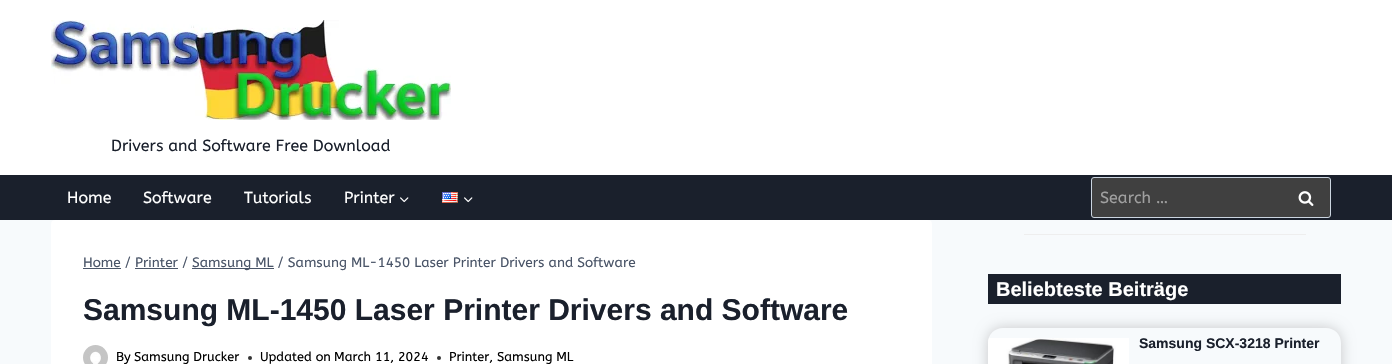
void draw(SkCanvas* canvas) {
	SkPaint fill;
	fill.setAntiAlias(true);
	auto makeFont = [&](const char* family, int weight, float size, bool italic = false) {
		SkFontStyle style(weight, SkFontStyle::kNormal_Width,
			italic ? SkFontStyle::kItalic_Slant : SkFontStyle::kUpright_Slant);
		SkFont result(fontMgr->matchFamilyStyle(family, style), size);
		result.setSubpixel(true);
		return result;
	};
	auto text = [&](const char* s, float x, float y, const SkFont& font) {
		canvas->drawString(s, x, y, font, fill);
	};
	auto box = [&](float l, float t, float r, float b) {
		canvas->drawRect(SkRect::MakeLTRB(l, t, r, b), fill);
	};
	auto roundBox = [&](float l, float t, float r, float b, float radius) {
		canvas->drawRoundRect(SkRect::MakeLTRB(l, t, r, b), radius, radius, fill);
	};
	auto picture = [&](const char* path, float l, float t, float r, float b) {
		auto image = SkImages::DeferredFromEncodedData(SkData::MakeFromFileName(path));
		canvas->drawImageRect(image, SkRect::MakeLTRB(l, t, r, b), SkSamplingOptions());
	};
	canvas->clear(0xFFF7FAFC);
	fill.setColor(0xFFFFFFFF);
	box(0, 0, 1392, 175);
	picture("image0.png", 51, 20, 451, 120);
	fill.setColor(0xFF1A202C);
	box(0, 175, 1392, 220);
	picture("image1.png", 400, 197, 409, 203);
	picture("image2.png", 442, 192, 458, 203);
	picture("image1.png", 464, 197, 473, 203);
	fill.setColor(0xFF404040);
	canvas->drawRoundRect(SkRect::MakeLTRB(1091.5f, 177.5f, 1330.5f, 217.5f), 2.5f, 2.5f, fill);
	fill.setStyle(SkPaint::kStroke_Style);
	fill.setStrokeWidth(1);
	fill.setColor(0xFFCBD5E0);
	canvas->drawRoundRect(SkRect::MakeLTRB(1091.5f, 177.5f, 1330.5f, 217.5f), 2.5f, 2.5f, fill);
	picture("image3.png", 1298, 191, 1314, 206);
	fill.setStyle(SkPaint::kFill_Style);
	fill.setColor(0xFFFFFFFF);
	roundBox(51, 220, 932, 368, 4);
	fill.setColor(0xFF4A5568);
	box(83, 268, 121, 269);
	box(192, 268, 274, 269);
	box(135, 268, 178, 269);
	picture("image4.png", 83, 345, 108, 364);
	fill.setColor(0xFF333333);
	canvas->drawCircle(250, 358, 2, fill);
	canvas->drawCircle(439, 358, 2, fill);
	fill.setColor(0xFFEEEEEE);
	box(1024, 234, 1306, 235);
	fill.setColor(0xFF1A202C);
	box(988, 274, 1341, 304);
	canvas->save();
	canvas->clipPath(SkPathBuilder(SkPathFillType::kEvenOdd).moveTo(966, 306).lineTo(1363, 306).lineTo(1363, 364).lineTo(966, 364).close().moveTo(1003, 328).lineTo(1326, 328).cubicTo(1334.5f, 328, 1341, 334.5f, 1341, 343).lineTo(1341, 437).cubicTo(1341, 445.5f, 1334.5f, 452, 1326, 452).lineTo(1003, 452).cubicTo(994.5f, 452, 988, 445.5f, 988, 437).lineTo(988, 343).cubicTo(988, 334.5f, 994.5f, 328, 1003, 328).close().detach(), true);
	fill.setColor(0x33000000);
	fill.setMaskFilter(SkMaskFilter::MakeBlur(kNormal_SkBlurStyle, 7));
	canvas->drawRoundRect(SkRect::MakeLTRB(988, 328, 1341, 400), 15, 15, fill);
	fill.setMaskFilter(nullptr);
	canvas->restore();
	picture("image5.png", 988, 338, 1129, 364);
	auto font1 = makeFont("ABeeZee", 400, 16);
	fill.setColor(0xFF1A202C);
	text("Drivers and Software Free Download", 111, 151, font1);
	fill.setColor(0xFFFFFFFF);
	text("Home", 67, 203, font1);
	text("Software", 143, 203, font1);
	text("Tutorials", 244, 203, font1);
	text("Printer", 344, 203, font1);
	fill.setColor(0xFFA0A0A0);
	text("Search …", 1100, 203, font1);
	auto font2 = makeFont("ABeeZee", 400, 13.6f);
	fill.setColor(0xFF4A5568);
	text("Home / Printer /", 83, 267, font2);
	text("Samsung ML / Samsung ML-1450 Laser Printer Drivers and Software", 192, 267, font2);
	auto font3 = makeFont("Liberation Sans", 700, 30);
	fill.setColor(0xFF1A202C);
	text("Samsung ML-1450 Laser Printer Drivers and Software", 83, 320, font3);
	auto font4 = makeFont("ABeeZee", 400, 12.75f);
	fill.setColor(0xFF000000);
	text("By", 116, 361, font4);
	text("Samsung Drucker", 134, 361, font4);
	text("Updated on", 260, 361, font4);
	text("March 11, 2024", 334, 361, font4);
	text("Printer, Samsung ML", 449, 361, font4);
	auto font5 = makeFont("Liberation Sans", 700, 20);
	fill.setColor(0xFFFFFFFF);
	text("Beliebteste Beiträge", 996, 296, font5);
	auto font6 = makeFont("Liberation Sans", 700, 14);
	fill.setColor(0xFF1A202C);
	text("Samsung SCX-3218 Printer", 1139, 348, font6);
}
